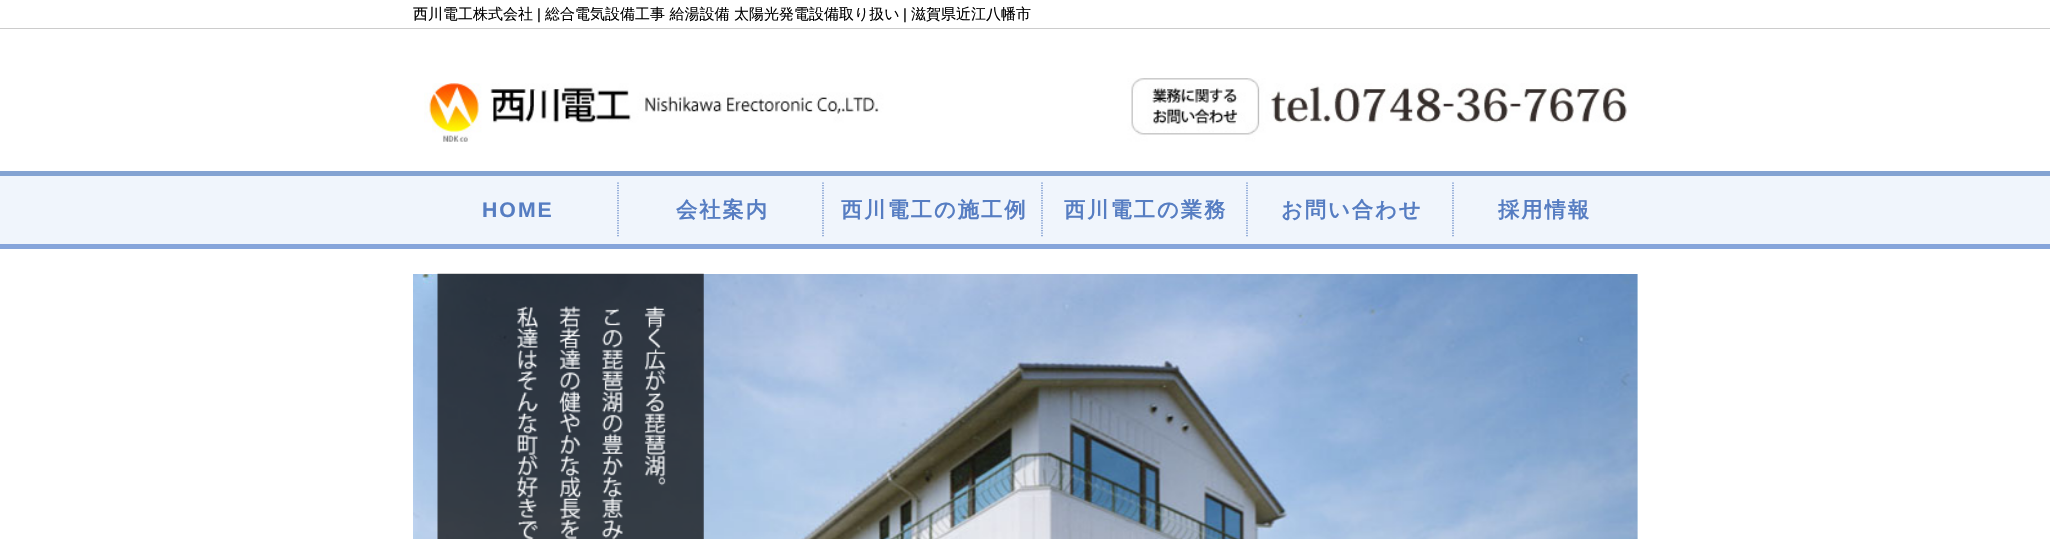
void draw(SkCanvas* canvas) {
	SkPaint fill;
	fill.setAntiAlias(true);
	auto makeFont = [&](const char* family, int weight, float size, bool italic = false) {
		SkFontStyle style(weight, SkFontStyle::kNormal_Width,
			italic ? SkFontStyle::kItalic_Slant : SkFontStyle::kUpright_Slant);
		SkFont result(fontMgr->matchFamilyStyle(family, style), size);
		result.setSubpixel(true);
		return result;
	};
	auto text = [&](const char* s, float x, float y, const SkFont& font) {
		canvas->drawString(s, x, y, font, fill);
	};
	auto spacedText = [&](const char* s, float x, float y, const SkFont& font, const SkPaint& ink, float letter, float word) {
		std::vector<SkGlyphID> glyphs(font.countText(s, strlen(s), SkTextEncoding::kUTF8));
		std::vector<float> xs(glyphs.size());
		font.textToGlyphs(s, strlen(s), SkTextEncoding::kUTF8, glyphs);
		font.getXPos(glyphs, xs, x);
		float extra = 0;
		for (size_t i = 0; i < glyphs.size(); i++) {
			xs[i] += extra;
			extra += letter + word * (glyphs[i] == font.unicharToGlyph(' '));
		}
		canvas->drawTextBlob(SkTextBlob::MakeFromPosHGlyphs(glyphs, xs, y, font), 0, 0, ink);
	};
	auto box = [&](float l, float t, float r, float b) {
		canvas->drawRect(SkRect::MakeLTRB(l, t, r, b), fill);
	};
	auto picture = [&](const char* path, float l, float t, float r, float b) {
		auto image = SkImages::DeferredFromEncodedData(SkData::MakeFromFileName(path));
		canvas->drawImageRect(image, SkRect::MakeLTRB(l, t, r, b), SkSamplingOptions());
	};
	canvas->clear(0xFFFFFFFF);
	fill.setColor(0xFFCCCCCC);
	box(0, 28, 2050, 29);
	picture("image0.png", 424, 78, 1627, 142);
	fill.setColor(0xFFF0F5FC);
	box(0, 176, 2050, 244);
	fill.setColor(0xFF84A3D2);
	box(0, 171, 2050, 176);
	fill.setColor(0xFF86A5DB);
	box(0, 244, 2050, 249);
	fill.setStyle(SkPaint::kStroke_Style);
	fill.setStrokeWidth(1.2f);
	fill.setColor(0xFF567DC2);
	fill.setPathEffect(SkDashPathEffect::Make({{1.25f, 1.25f}}, 0));
	canvas->drawPath(SkPathBuilder().moveTo(618, 182.5f).lineTo(618, 237.5f).detach(), fill);
	fill.setPathEffect(nullptr);
	fill.setPathEffect(SkDashPathEffect::Make({{1.25f, 1.25f}}, 0));
	canvas->drawPath(SkPathBuilder().moveTo(823, 182.5f).lineTo(823, 237.5f).detach(), fill);
	fill.setPathEffect(nullptr);
	fill.setPathEffect(SkDashPathEffect::Make({{1.25f, 1.25f}}, 0));
	canvas->drawPath(SkPathBuilder().moveTo(1042, 182.5f).lineTo(1042, 237.5f).detach(), fill);
	fill.setPathEffect(nullptr);
	fill.setPathEffect(SkDashPathEffect::Make({{1.25f, 1.25f}}, 0));
	canvas->drawPath(SkPathBuilder().moveTo(1247, 182.5f).lineTo(1247, 237.5f).detach(), fill);
	fill.setPathEffect(nullptr);
	fill.setPathEffect(SkDashPathEffect::Make({{1.25f, 1.25f}}, 0));
	canvas->drawPath(SkPathBuilder().moveTo(1453, 182.5f).lineTo(1453, 237.5f).detach(), fill);
	fill.setPathEffect(nullptr);
	fill.setStyle(SkPaint::kFill_Style);
	fill.setColor(0xFFDFEDF5);
	box(1637, 274, 1638, 539);
	picture("image2.png", 413, 274, 1638, 539);
	picture("image1.png", 437, 273, 704, 539);
	auto font1 = makeFont("WenQuanYi Zen Hei", 500, 15);
	fill.setColor(0xFF000000);
	text("西川電工株式会社", 413, 19, font1);
	auto font2 = makeFont("Liberation Sans", 400, 15);
	text("|", 537, 19, font2);
	text("総合電気設備工事 給湯設備 太陽光発電設備取り扱い", 545, 19, font1);
	text("|", 903, 19, font2);
	text("滋賀県近江八幡市", 911, 19, font1);
	auto font3 = makeFont("Liberation Sans", 700, 21.25f);
	fill.setColor(0xFF567DC2);
	spacedText("HOME", 482, 217, font3, fill, 2, 0);
	auto font4 = makeFont("WenQuanYi Zen Hei", 700, 21.25f);
	spacedText("会社案内", 676, 217, font4, fill, 2, 0);
	spacedText("西川電工の施工例", 841, 217, font4, fill, 2, 0);
	spacedText("西川電工の業務", 1064, 217, font4, fill, 2, 0);
	spacedText("お問い合わせ", 1281, 217, font4, fill, 2, 0);
	spacedText("採用情報", 1498, 217, font4, fill, 2, 0);
}
